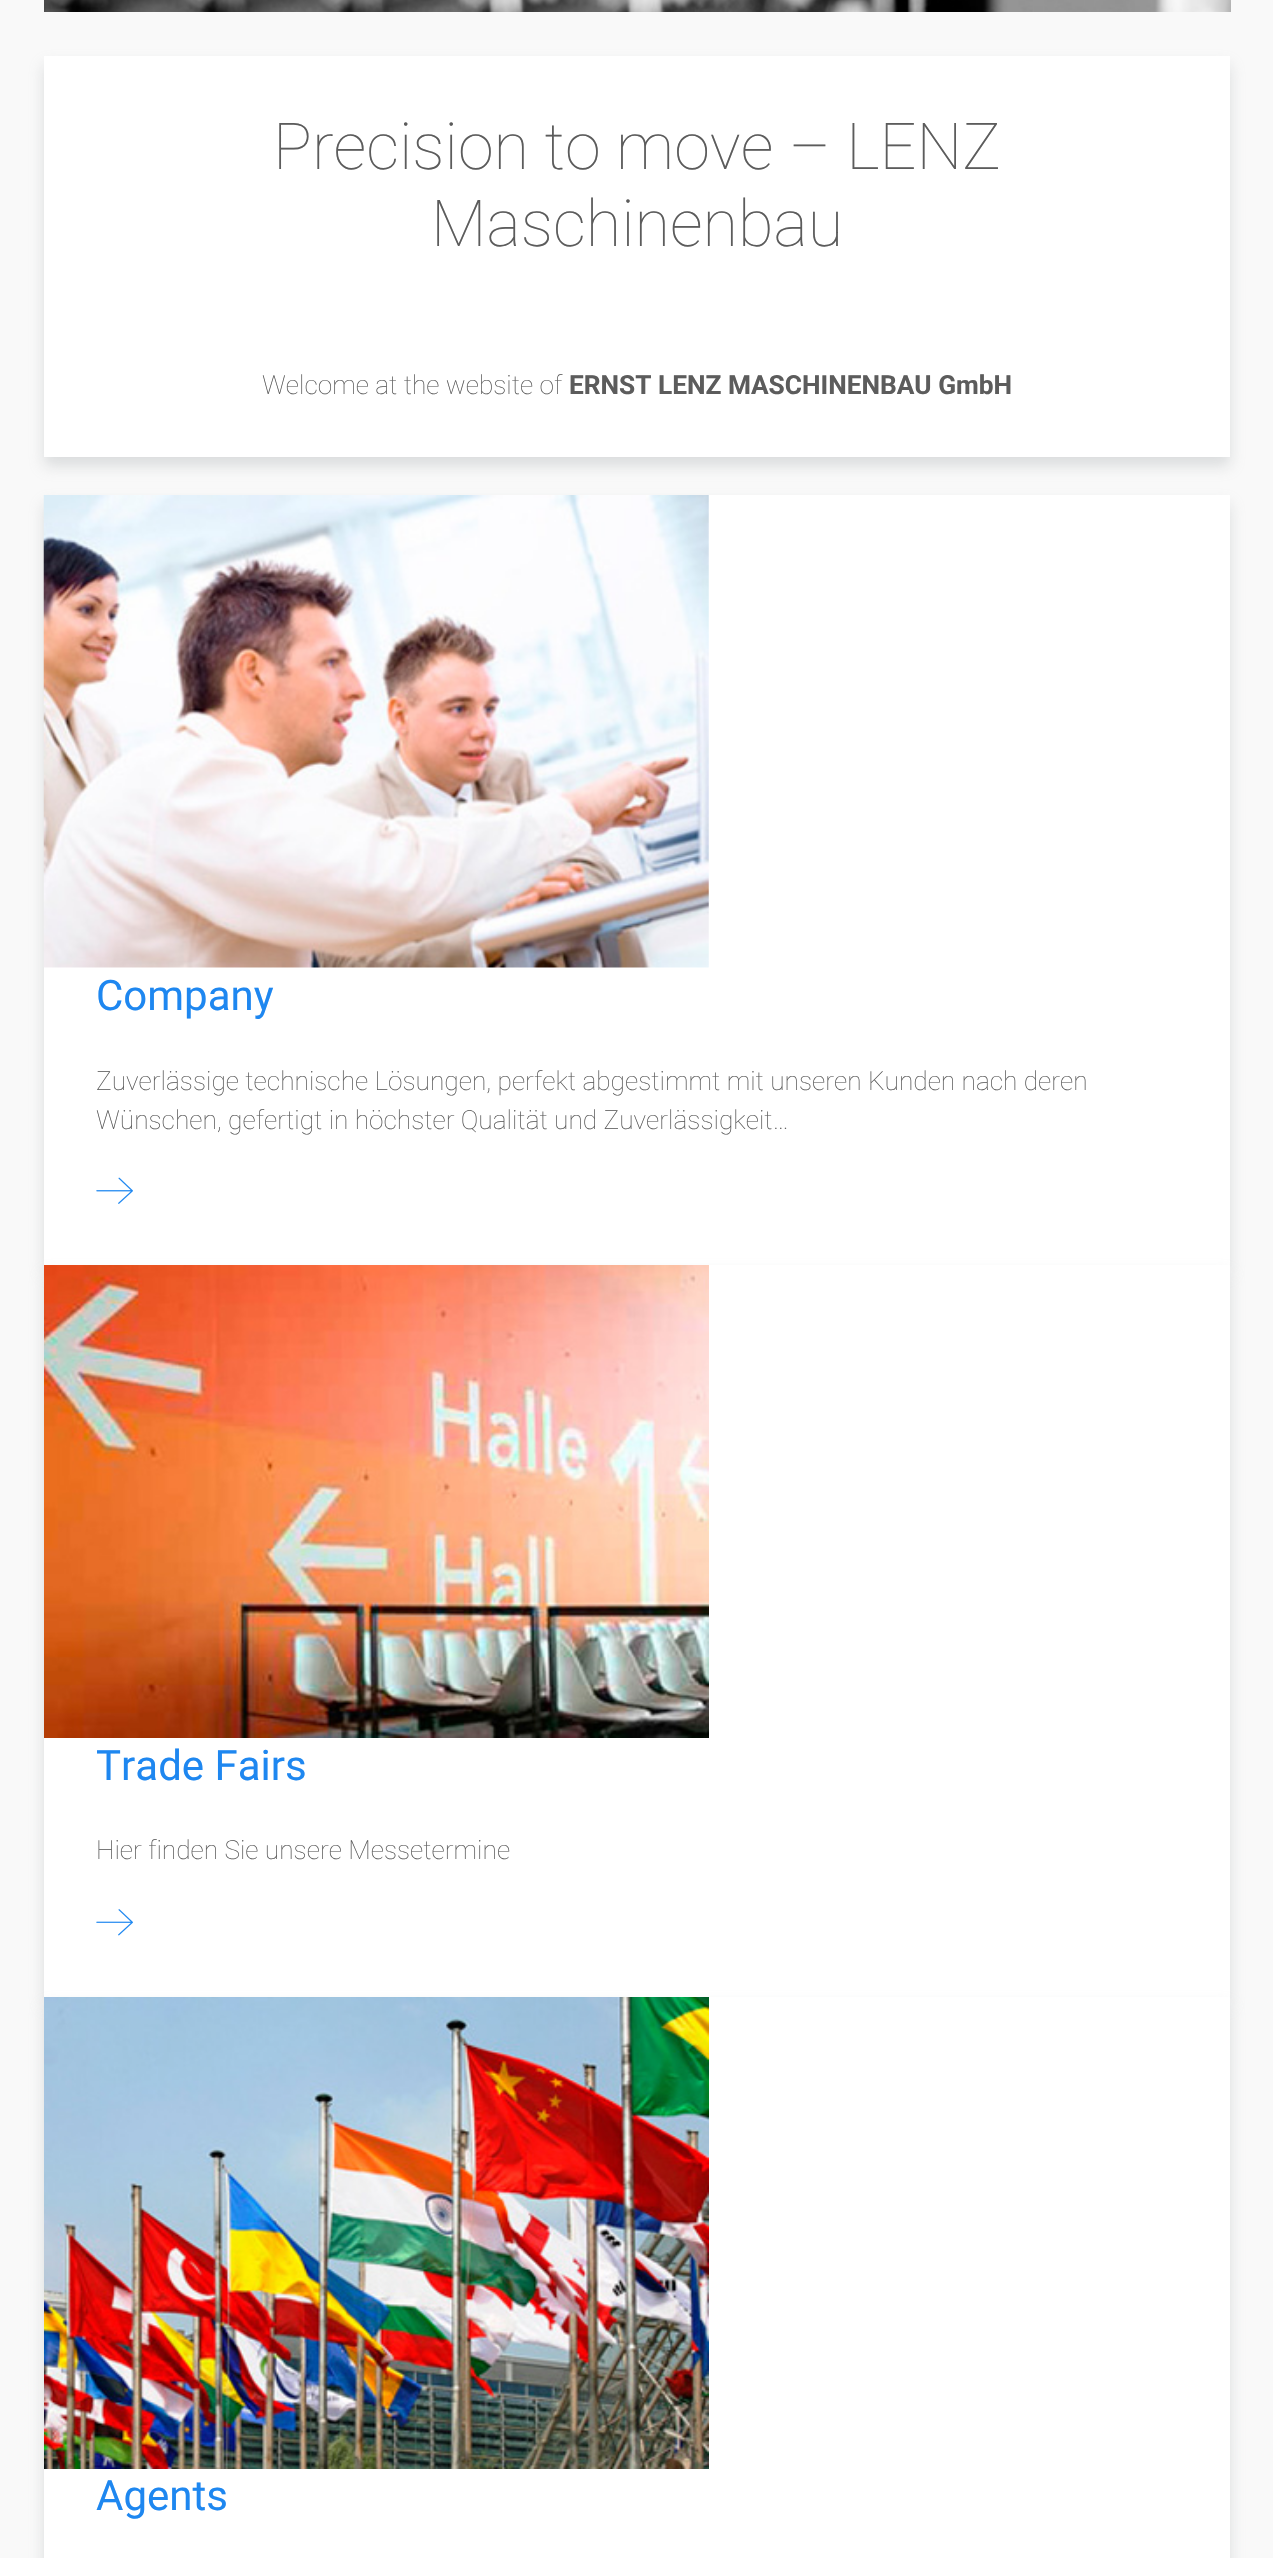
void draw(SkCanvas* canvas) {
	SkPaint fill;
	fill.setAntiAlias(true);
	auto makeFont = [&](const char* family, int weight, float size, bool italic = false) {
		SkFontStyle style(weight, SkFontStyle::kNormal_Width,
			italic ? SkFontStyle::kItalic_Slant : SkFontStyle::kUpright_Slant);
		SkFont result(fontMgr->matchFamilyStyle(family, style), size);
		result.setSubpixel(true);
		return result;
	};
	auto text = [&](const char* s, float x, float y, const SkFont& font) {
		canvas->drawString(s, x, y, font, fill);
	};
	auto box = [&](float l, float t, float r, float b) {
		canvas->drawRect(SkRect::MakeLTRB(l, t, r, b), fill);
	};
	auto picture = [&](const char* path, float l, float t, float r, float b) {
		auto image = SkImages::DeferredFromEncodedData(SkData::MakeFromFileName(path));
		canvas->drawImageRect(image, SkRect::MakeLTRB(l, t, r, b), SkSamplingOptions());
	};
	canvas->clear(0xFFF9F9F9);
	picture("image0.png", 44, 0, 1231, 12);
	fill.setColor(0x59A0A6A8);
	fill.setMaskFilter(SkMaskFilter::MakeBlur(kNormal_SkBlurStyle, 7));
	canvas->drawRect(SkRect::MakeLTRB(44, 65, 1230, 466), fill);
	fill.setMaskFilter(nullptr);
	fill.setColor(0xFFFFFFFF);
	box(44, 56, 1230, 457);
	fill.setColor(0x59A0A6A8);
	fill.setMaskFilter(SkMaskFilter::MakeBlur(kNormal_SkBlurStyle, 7));
	canvas->drawRect(SkRect::MakeLTRB(44, 504, 1230, 1274), fill);
	fill.setMaskFilter(nullptr);
	fill.setColor(0xFFFFFFFF);
	box(44, 495, 1230, 1265);
	picture("image1.png", 43, 495, 709, 968);
	picture("image2.png", 96, 1177, 133, 1204);
	fill.setColor(0x59A0A6A8);
	fill.setMaskFilter(SkMaskFilter::MakeBlur(kNormal_SkBlurStyle, 7));
	canvas->drawRect(SkRect::MakeLTRB(44, 1274, 1230, 2006), fill);
	fill.setMaskFilter(nullptr);
	fill.setColor(0xFFFFFFFF);
	box(44, 1265, 1230, 1997);
	picture("image3.png", 44, 1265, 709, 1738);
	picture("image4.png", 96, 1909, 133, 1936);
	fill.setColor(0x59A0A6A8);
	fill.setMaskFilter(SkMaskFilter::MakeBlur(kNormal_SkBlurStyle, 7));
	canvas->drawRect(SkRect::MakeLTRB(44, 2006, 1230, 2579), fill);
	fill.setMaskFilter(nullptr);
	fill.setColor(0xFFFFFFFF);
	box(44, 1997, 1230, 2558);
	picture("image5.png", 44, 1997, 709, 2469);
	auto font1 = makeFont("Roboto", 100, 64.75f);
	fill.setColor(0xFF5C5C5C);
	text("Precision to move – LENZ", 273, 169, font1);
	text("Maschinenbau", 431, 246, font1);
	auto font2 = makeFont("Roboto", 100, 26.25f);
	text("Welcome at the website of", 262, 394, font2);
	auto font3 = makeFont("Roboto", 700, 26.25f);
	text("ERNST LENZ MASCHINENBAU GmbH", 569, 394, font3);
	auto font4 = makeFont("Roboto", 400, 42);
	fill.setColor(0xFF1E87F0);
	text("Company", 96, 1010, font4);
	fill.setColor(0xFF5C5C5C);
	text("Zuverlässige technische Lösungen, perfekt abgestimmt mit unseren Kunden nach deren", 96, 1090, font2);
	text("Wünschen, gefertigt in höchster Qualität und Zuverlässigkeit…", 96, 1129, font2);
	fill.setColor(0xFF1E87F0);
	text("Trade Fairs", 96, 1780, font4);
	fill.setColor(0xFF5C5C5C);
	text("Hier finden Sie unsere Messetermine", 96, 1859, font2);
	fill.setColor(0xFF1E87F0);
	text("Agents", 96, 2510, font4);
}
